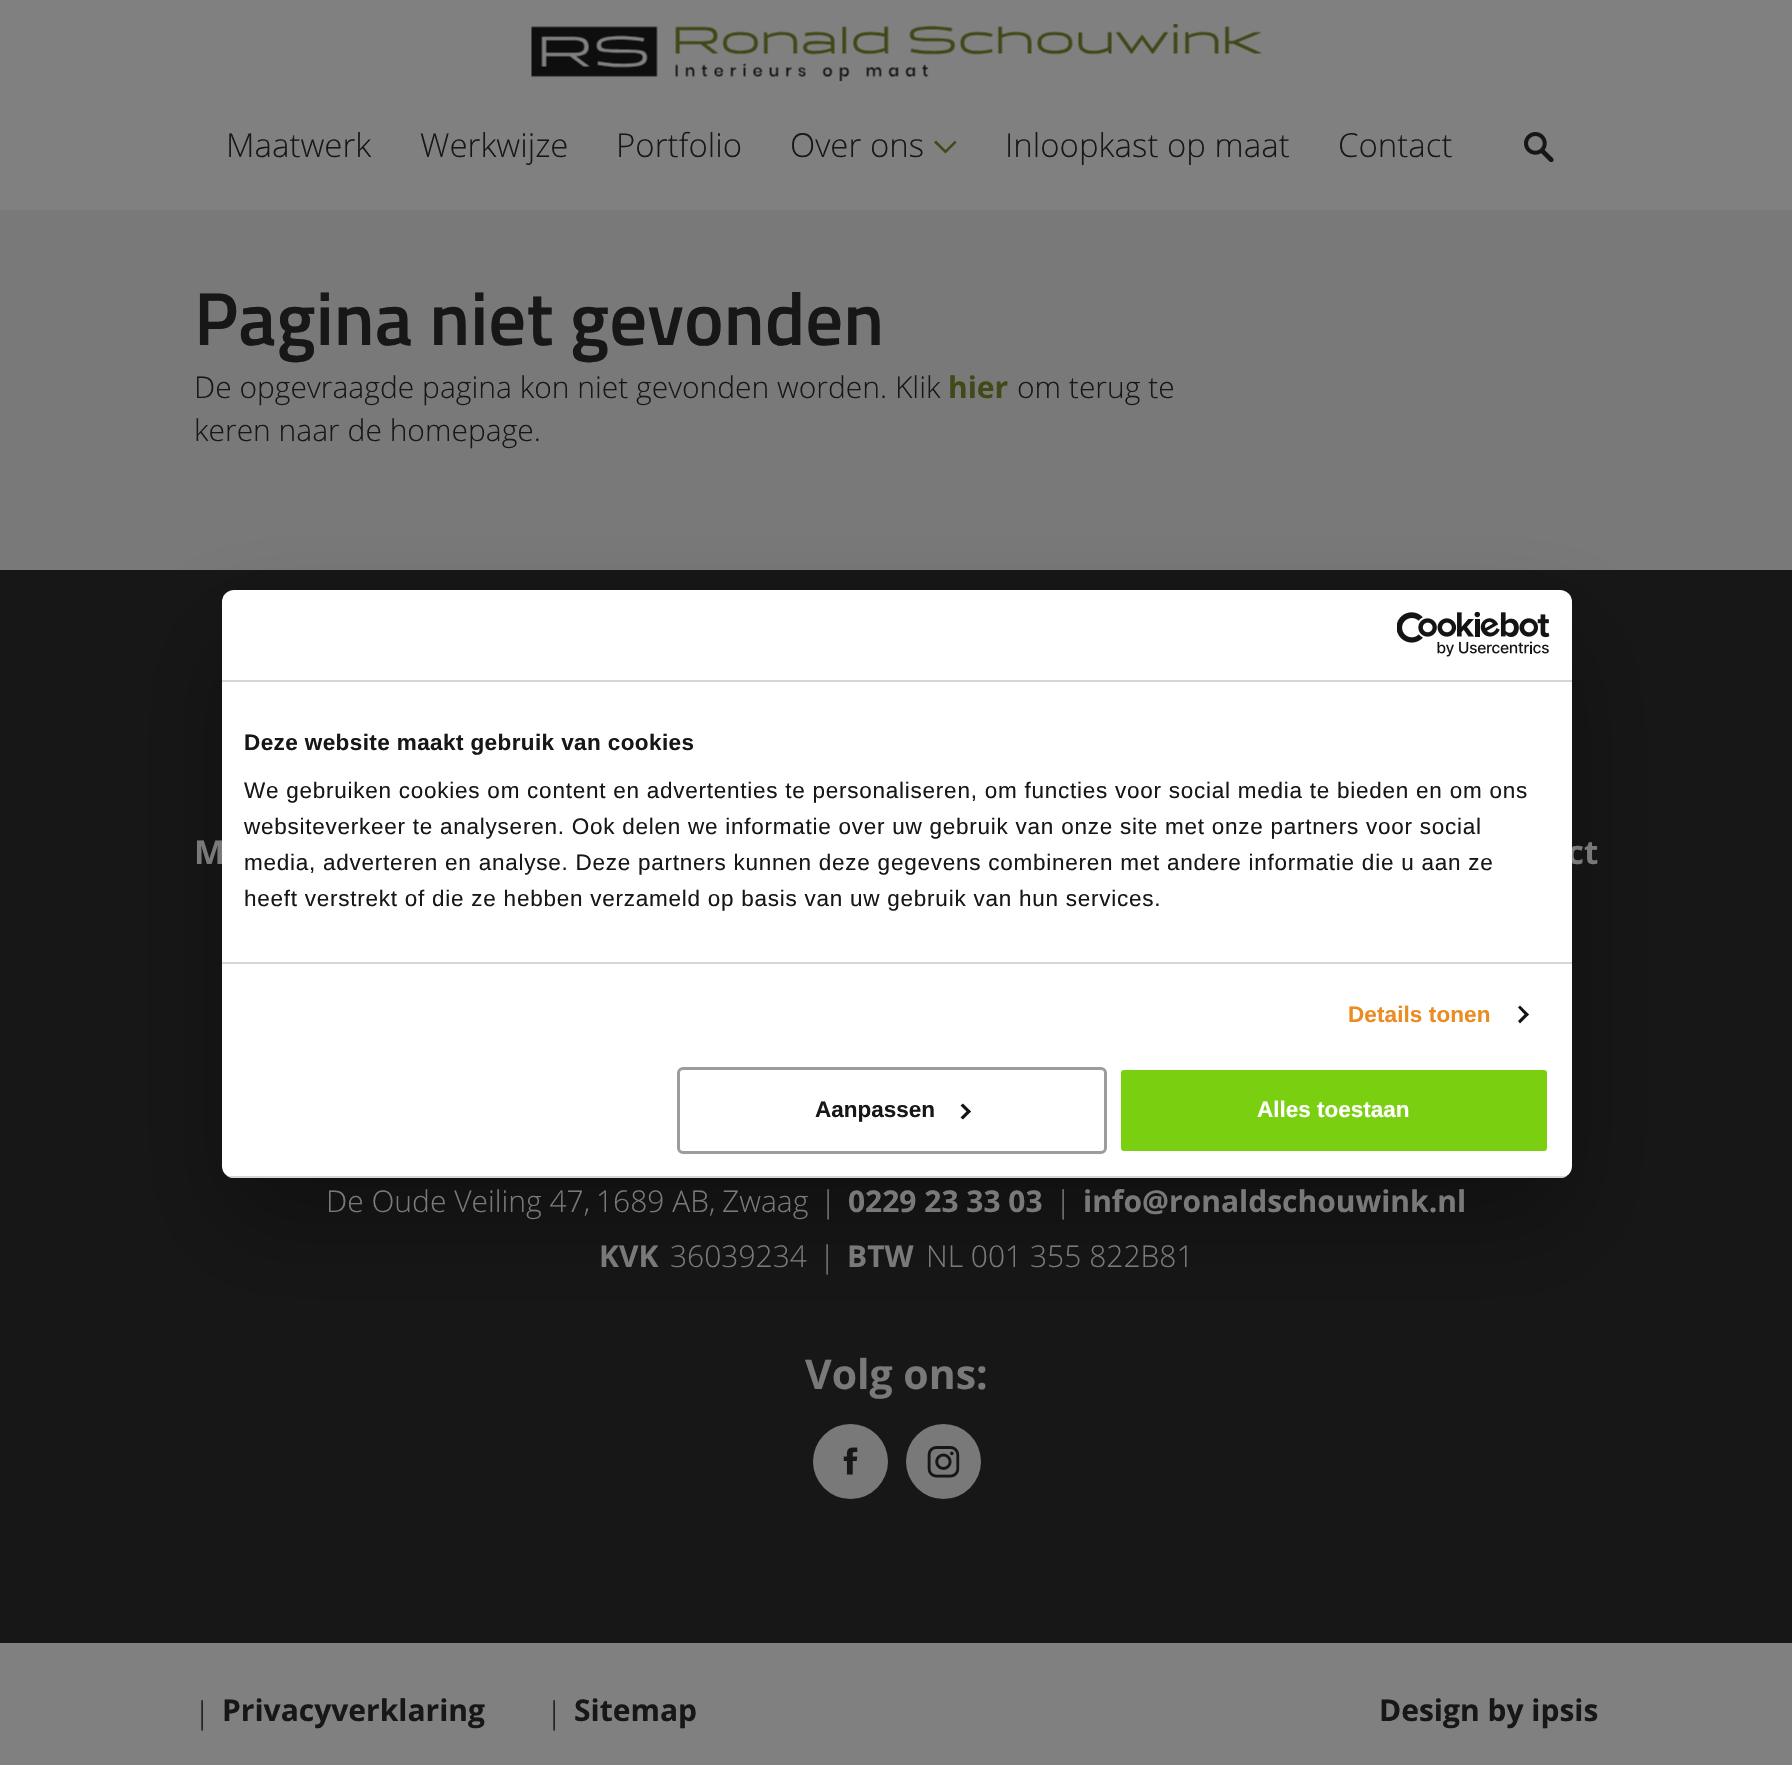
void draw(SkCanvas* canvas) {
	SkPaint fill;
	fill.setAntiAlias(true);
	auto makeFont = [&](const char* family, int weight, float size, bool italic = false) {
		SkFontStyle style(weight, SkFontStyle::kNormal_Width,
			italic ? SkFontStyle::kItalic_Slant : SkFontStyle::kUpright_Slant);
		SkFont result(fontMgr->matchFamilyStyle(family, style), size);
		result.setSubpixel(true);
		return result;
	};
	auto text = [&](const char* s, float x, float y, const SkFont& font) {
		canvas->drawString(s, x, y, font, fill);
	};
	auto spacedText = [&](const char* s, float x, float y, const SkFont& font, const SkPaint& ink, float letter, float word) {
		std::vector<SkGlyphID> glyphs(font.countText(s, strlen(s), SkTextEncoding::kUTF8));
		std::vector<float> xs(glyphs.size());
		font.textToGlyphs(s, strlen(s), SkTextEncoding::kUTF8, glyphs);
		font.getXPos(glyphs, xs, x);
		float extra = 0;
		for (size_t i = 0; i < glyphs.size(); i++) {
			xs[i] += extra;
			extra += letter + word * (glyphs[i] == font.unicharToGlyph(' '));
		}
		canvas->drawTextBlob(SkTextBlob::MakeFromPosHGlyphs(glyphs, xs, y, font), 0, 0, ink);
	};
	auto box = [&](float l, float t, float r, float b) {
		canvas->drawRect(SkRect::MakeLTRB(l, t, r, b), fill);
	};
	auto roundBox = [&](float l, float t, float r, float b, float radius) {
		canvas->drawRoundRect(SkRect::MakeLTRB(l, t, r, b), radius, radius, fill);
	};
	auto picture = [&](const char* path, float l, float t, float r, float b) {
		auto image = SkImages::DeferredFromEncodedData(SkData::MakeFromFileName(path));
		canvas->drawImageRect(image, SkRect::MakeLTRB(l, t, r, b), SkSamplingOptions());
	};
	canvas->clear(0xFF808080);
	picture("image0.png", 531, 24, 1262, 81);
	fill.setColor(0xFF424919);
	canvas->drawPath(SkPathBuilder().moveTo(945.5f, 150).lineTo(936, 140.5f).lineTo(934, 142.5f).lineTo(945.5f, 153.5f).lineTo(956.5f, 142.5f).lineTo(955, 140.5f).close().detach(), fill);
	picture("image1.png", 1524, 132, 1554, 162);
	fill.setColor(0xFF797979);
	box(0, 210, 1792, 570);
	fill.setColor(0xFF171717);
	box(0, 570, 1792, 1643);
	fill.setColor(0xFF797979);
	canvas->drawCircle(850.5f, 1461.5f, 37.5f, fill);
	picture("image2.png", 843, 1447, 858, 1475);
	canvas->drawCircle(943.5f, 1461.5f, 37.5f, fill);
	picture("image3.png", 927, 1446, 960, 1478);
	fill.setColor(0x4D000000);
	fill.setMaskFilter(SkMaskFilter::MakeBlur(kNormal_SkBlurStyle, 51));
	canvas->drawRoundRect(SkRect::MakeLTRB(222, 638, 1572, 1226), 12, 12, fill);
	fill.setMaskFilter(nullptr);
	auto font1 = makeFont("Open Sans", 300, 33);
	fill.setColor(0xFF171717);
	text("Maatwerk", 226, 157, font1);
	text("Werkwijze", 420, 157, font1);
	text("Portfolio", 616, 157, font1);
	text("Over ons", 790, 157, font1);
	text("Inloopkast op maat", 1005, 157, font1);
	text("Contact", 1338, 157, font1);
	auto font2 = makeFont("Titillium Web", 600, 75);
	text("Pagina niet gevonden", 194, 345, font2);
	auto font3 = makeFont("Open Sans", 300, 30);
	text("De opgevraagde pagina kon niet gevonden worden. Klik", 194, 398, font3);
	auto font4 = makeFont("Open Sans", 700, 30);
	fill.setColor(0xFF424919);
	text("hier", 948, 398, font4);
	fill.setColor(0xFF171717);
	text("om terug te", 1017, 398, font3);
	text("keren naar de homepage.", 194, 441, font3);
	auto font5 = makeFont("Open Sans", 700, 33);
	fill.setColor(0xFF797979);
	text("M", 194, 864, font5);
	text("ct", 1567, 864, font5);
	text("De Oude Veiling 47,", 326, 1212, font3);
	text("1689 AB,", 596, 1212, font3);
	text("Zwaag", 722, 1212, font3);
	text("|", 820, 1212, font3);
	text("0229 23 33 03", 848, 1212, font4);
	text("|", 1055, 1212, font3);
	text("info@ronaldschouwink.nl", 1083, 1212, font4);
	text("KVK", 599, 1267, font4);
	text("36039234", 670, 1267, font3);
	text("|", 819, 1267, font3);
	text("BTW", 847, 1267, font4);
	text("NL 001 355 822B81", 926, 1267, font3);
	auto font6 = makeFont("Open Sans", 700, 41);
	text("Volg ons:", 805, 1389, font6);
	fill.setColor(0xFF171717);
	text("|", 194, 1723, font3);
	text("Privacyverklaring", 222, 1721, font4);
	text("|", 546, 1723, font3);
	text("Sitemap", 574, 1721, font4);
	text("Design by ipsis", 1379, 1721, font4);
	fill.setColor(0xFFFFFFFF);
	roundBox(222, 590, 1572, 1178, 12);
	fill.setColor(0xFFD6D6D6);
	box(222, 680, 1572, 682);
	picture("image4.png", 1397, 612, 1550, 657);
	box(222, 962, 1572, 964);
	auto font7 = makeFont("Liberation Sans", 700, 22.5f);
	fill.setColor(0xFF171717);
	spacedText("Deze website maakt gebruik van cookies", 244, 750, font7, fill, 0.4f, 0);
	auto font8 = makeFont("Liberation Sans", 400, 22.5f);
	spacedText("We gebruiken cookies om content en advertenties te personaliseren, om functies voor social media te bieden en om ons", 244, 798, font8, fill, 0.75f, 0);
	spacedText("websiteverkeer te analyseren. Ook delen we informatie over uw gebruik van onze site met onze partners voor social", 244, 834, font8, fill, 0.75f, 0);
	spacedText("media, adverteren en analyse. Deze partners kunnen deze gegevens combineren met andere informatie die u aan ze", 244, 870, font8, fill, 0.75f, 0);
	spacedText("heeft verstrekt of die ze hebben verzameld op basis van uw gebruik van hun services.", 244, 906, font8, fill, 0.75f, 0);
	fill.setColor(0xFFEB8C23);
	spacedText("Details tonen", 1348, 1022, font7, fill, 0.1f, 0);
	fill.setColor(0xFF141414);
	canvas->drawPath(SkPathBuilder().moveTo(1520, 1005.5f).lineTo(1529, 1014.5f).lineTo(1526.5f, 1016.5f).lineTo(1518, 1007.5f).close().detach(), fill);
	canvas->drawPath(SkPathBuilder().moveTo(1526.5f, 1012.5f).lineTo(1529, 1014.5f).lineTo(1520, 1023.5f).lineTo(1518, 1021).close().detach(), fill);
	canvas->save();
	canvas->clipPath(SkPathBuilder().moveTo(234, 590).lineTo(1560, 590).cubicTo(1566.5f, 590, 1572, 595.5f, 1572, 602).lineTo(1572, 1166).cubicTo(1572, 1172.5f, 1566.5f, 1178, 1560, 1178).lineTo(234, 1178).cubicTo(227.5f, 1178, 222, 1172.5f, 222, 1166).lineTo(222, 602).cubicTo(222, 595.5f, 227.5f, 590, 234, 590).close().detach(), true);
	fill.setColor(0xFFD6D6D6);
	box(222, 1176, 1572, 1178);
	canvas->restore();
	fill.setStyle(SkPaint::kStroke_Style);
	fill.setStrokeWidth(3);
	fill.setColor(0xFF9C9C9C);
	canvas->drawRoundRect(SkRect::MakeLTRB(678.5f, 1068.5f, 1105.5f, 1152.5f), 4.5f, 4.5f, fill);
	fill.setStyle(SkPaint::kFill_Style);
	fill.setColor(0xFF171717);
	text("Aanpassen", 815, 1117, font7);
	fill.setColor(0xFF141414);
	canvas->drawPath(SkPathBuilder().moveTo(963, 1103.5f).lineTo(971, 1111.5f).lineTo(968.5f, 1113.5f).lineTo(960.5f, 1105.5f).close().detach(), fill);
	canvas->drawPath(SkPathBuilder().moveTo(968.5f, 1109.5f).lineTo(971, 1111.5f).lineTo(963, 1119.5f).lineTo(960.5f, 1117.5f).close().detach(), fill);
	fill.setColor(0xFF79CF10);
	canvas->drawRoundRect(SkRect::MakeLTRB(1119.5f, 1068.5f, 1548.5f, 1152.5f), 4.5f, 4.5f, fill);
	fill.setStyle(SkPaint::kStroke_Style);
	fill.setColor(0xFFFFFFFF);
	canvas->drawRoundRect(SkRect::MakeLTRB(1119.5f, 1068.5f, 1548.5f, 1152.5f), 4.5f, 4.5f, fill);
	fill.setStyle(SkPaint::kFill_Style);
	text("Alles toestaan", 1257, 1117, font7);
}
